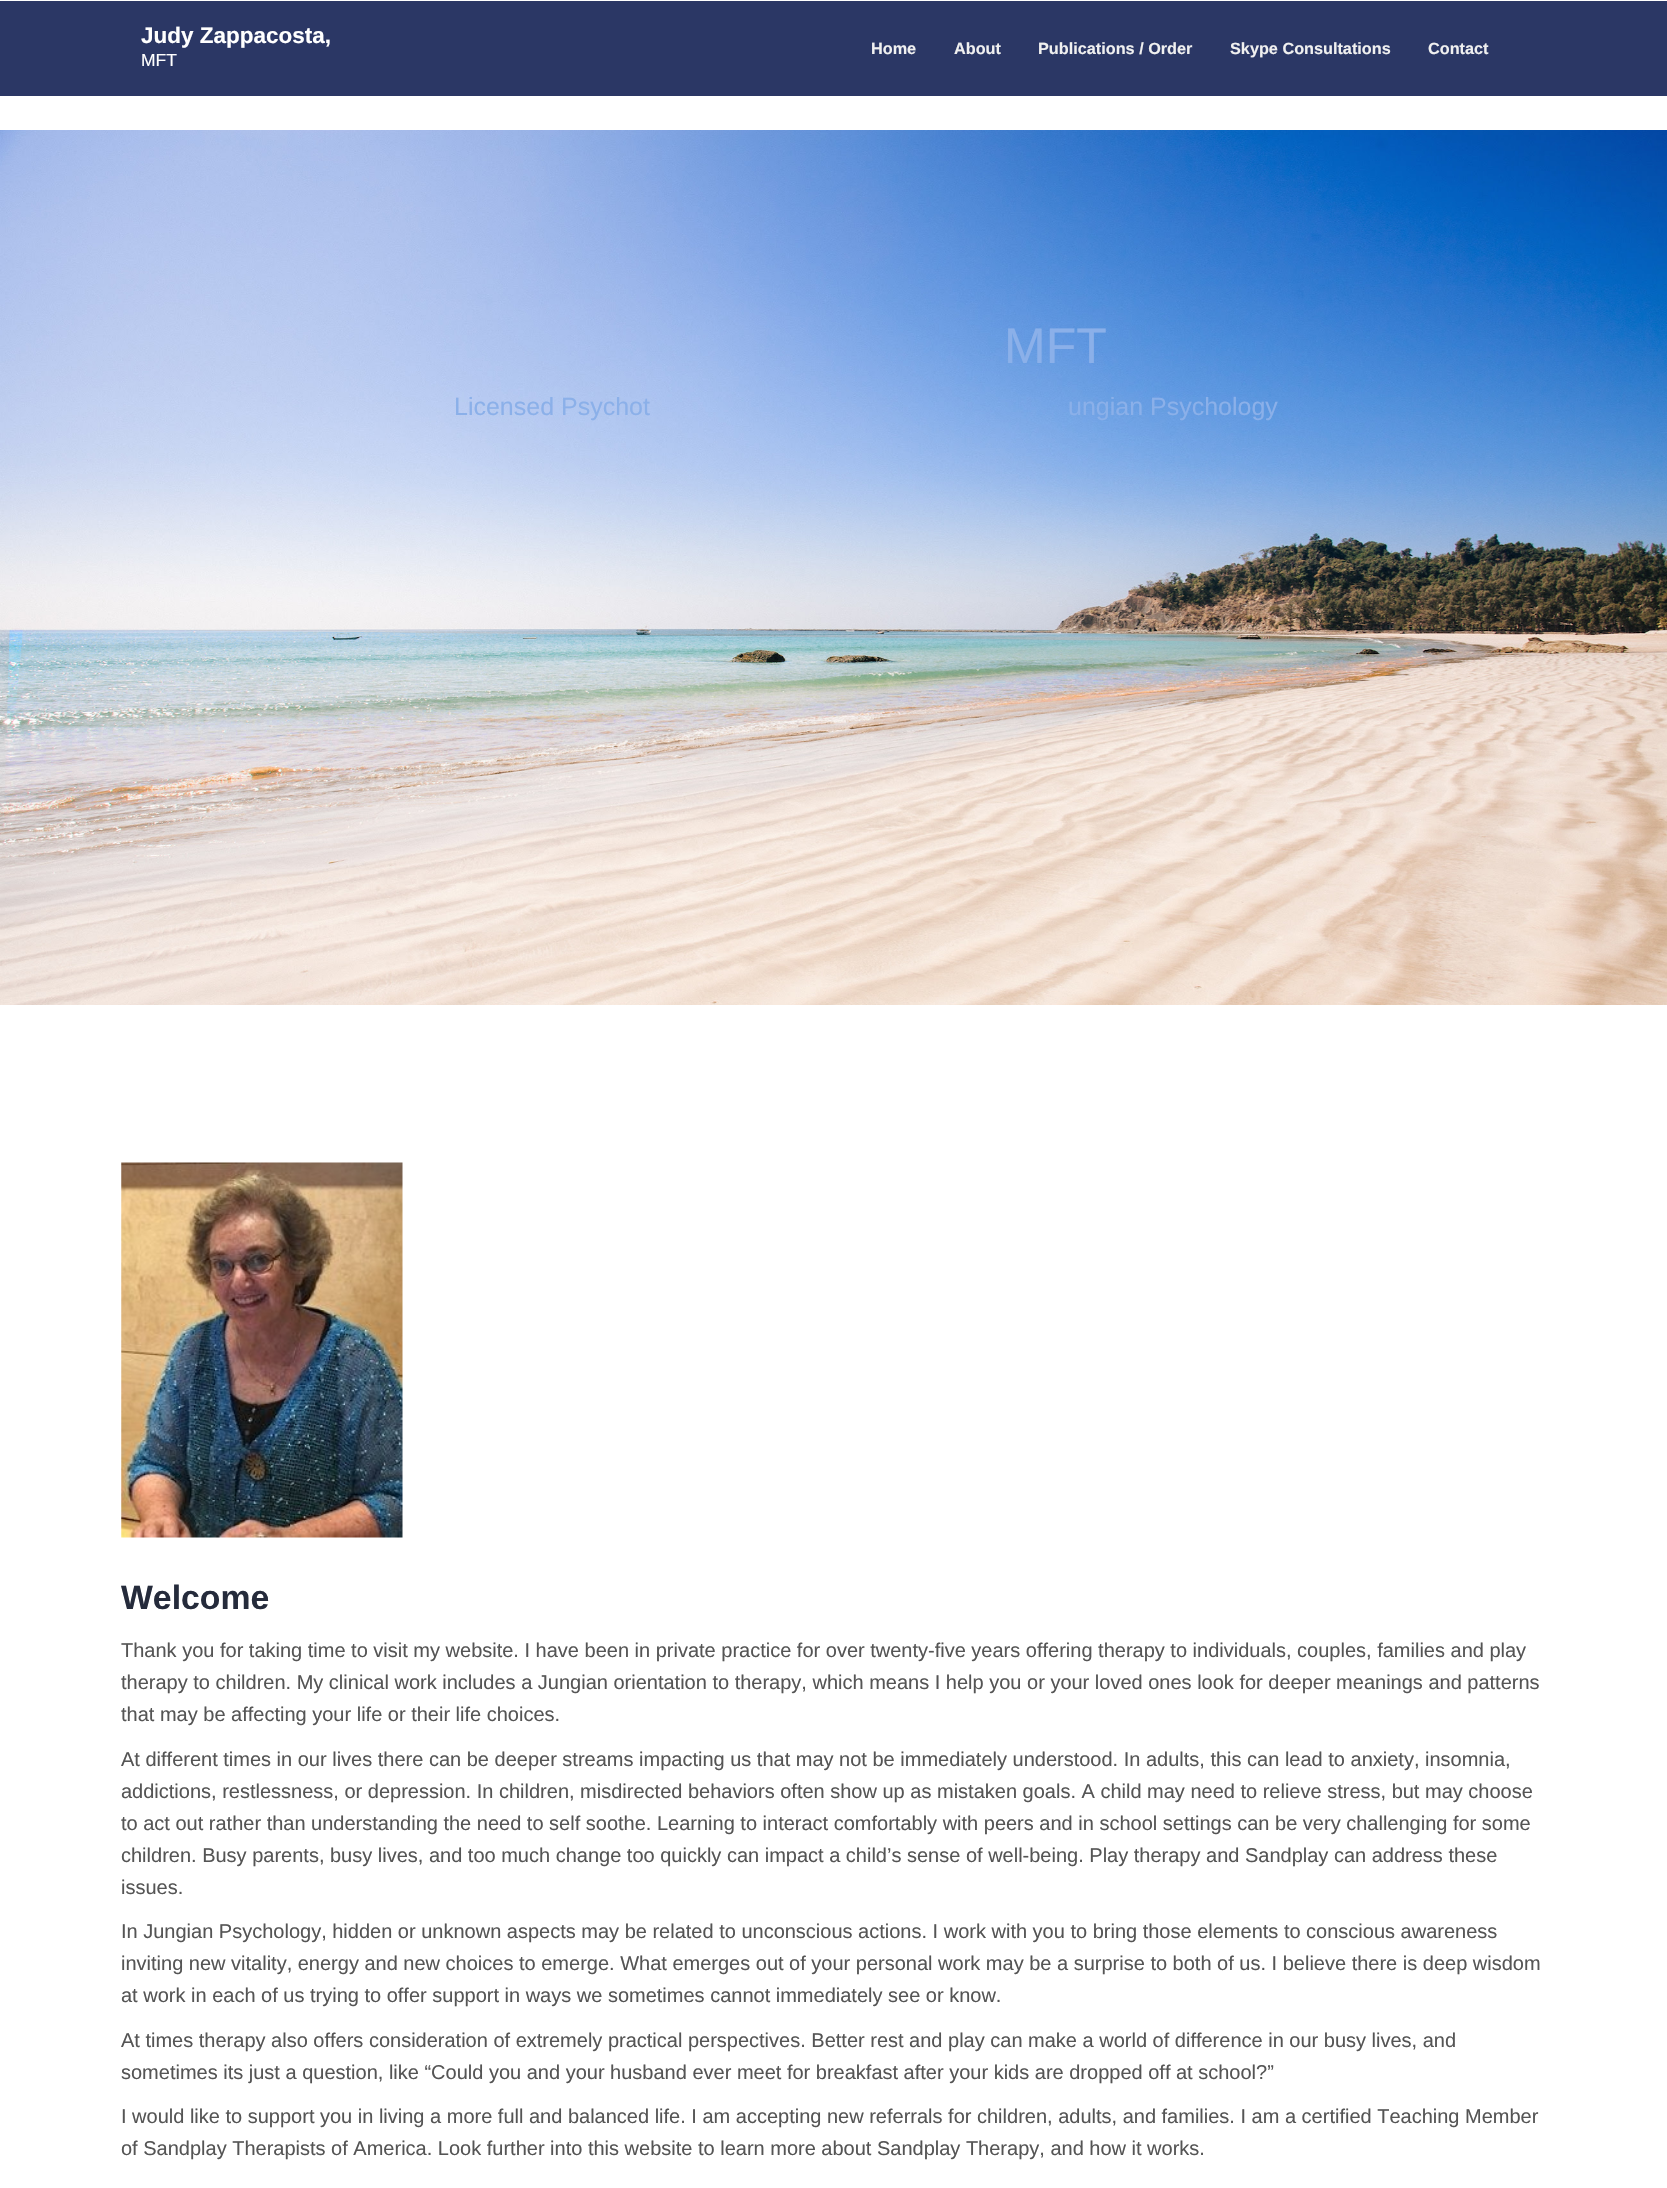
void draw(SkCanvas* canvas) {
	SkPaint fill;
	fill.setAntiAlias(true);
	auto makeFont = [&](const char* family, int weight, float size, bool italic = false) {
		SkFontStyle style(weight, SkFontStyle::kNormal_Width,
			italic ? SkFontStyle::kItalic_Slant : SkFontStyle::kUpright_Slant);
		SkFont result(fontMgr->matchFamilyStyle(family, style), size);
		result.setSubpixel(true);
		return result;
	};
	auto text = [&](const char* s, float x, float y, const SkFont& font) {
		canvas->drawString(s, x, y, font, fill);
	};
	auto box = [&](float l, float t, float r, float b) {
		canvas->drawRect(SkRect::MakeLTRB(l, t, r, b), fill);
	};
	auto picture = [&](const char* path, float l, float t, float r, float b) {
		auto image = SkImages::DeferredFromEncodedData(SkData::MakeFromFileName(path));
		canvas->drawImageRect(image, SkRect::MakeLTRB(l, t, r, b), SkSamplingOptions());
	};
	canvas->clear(0xFFFFFFFF);
	fill.setColor(0xFF2B3765);
	box(0, 1, 1667, 96);
	picture("image0.png", 0, 130, 1667, 1005);
	picture("image1.png", 121, 1162, 403, 1538);
	auto font1 = makeFont("Liberation Sans", 700, 22.5f);
	fill.setColor(0xFFFFFFFF);
	text("Judy Zappacosta,", 141, 43, font1);
	auto font2 = makeFont("Liberation Sans", 400, 17.5f);
	text("MFT", 141, 66, font2);
	auto font3 = makeFont("Liberation Sans", 700, 16.25f);
	fill.setColor(0xFFF0F0F0);
	text("Home", 871, 54, font3);
	text("About", 954, 54, font3);
	text("Publications / Order", 1038, 54, font3);
	text("Skype Consultations", 1230, 54, font3);
	text("Contact", 1428, 54, font3);
	auto font4 = makeFont("Liberation Sans", 400, 50);
	fill.setColor(0xFF8BB0E9);
	text("MFT", 1004, 363, font4);
	auto font5 = makeFont("Liberation Sans", 400, 25);
	text("Licensed Psychot", 454, 415, font5);
	text("ungian Psychology", 1068, 415, font5);
	auto font6 = makeFont("Liberation Sans", 700, 33.75f);
	fill.setColor(0xFF252B3B);
	text("Welcome", 121, 1609, font6);
	auto font7 = makeFont("Liberation Sans", 400, 20);
	fill.setColor(0xFF555555);
	text("Thank you for taking time to visit my website. I have been in private practice for over twenty-five years offering therapy to individuals, couples, families and play", 121, 1657, font7);
	text("therapy to children. My clinical work includes a Jungian orientation to therapy, which means I help you or your loved ones look for deeper meanings and patterns", 121, 1689, font7);
	text("that may be affecting your life or their life choices.", 121, 1721, font7);
	text("At different times in our lives there can be deeper streams impacting us that may not be immediately understood. In adults, this can lead to anxiety, insomnia,", 121, 1766, font7);
	text("addictions, restlessness, or depression. In children, misdirected behaviors often show up as mistaken goals. A child may need to relieve stress, but may choose", 121, 1798, font7);
	text("to act out rather than understanding the need to self soothe. Learning to interact comfortably with peers and in school settings can be very challenging for some", 121, 1830, font7);
	text("children. Busy parents, busy lives, and too much change too quickly can impact a child’s sense of well-being. Play therapy and Sandplay can address these", 121, 1862, font7);
	text("issues.", 121, 1894, font7);
	text("In Jungian Psychology, hidden or unknown aspects may be related to unconscious actions. I work with you to bring those elements to conscious awareness", 121, 1938, font7);
	text("inviting new vitality, energy and new choices to emerge. What emerges out of your personal work may be a surprise to both of us. I believe there is deep wisdom", 121, 1970, font7);
	text("at work in each of us trying to offer support in ways we sometimes cannot immediately see or know.", 121, 2002, font7);
	text("At times therapy also offers consideration of extremely practical perspectives. Better rest and play can make a world of difference in our busy lives, and", 121, 2047, font7);
	text("sometimes its just a question, like “Could you and your husband ever meet for breakfast after your kids are dropped off at school?”", 121, 2079, font7);
	text("I would like to support you in living a more full and balanced life. I am accepting new referrals for children, adults, and families. I am a certified Teaching Member", 121, 2123, font7);
	text("of Sandplay Therapists of America. Look further into this website to learn more about Sandplay Therapy, and how it works.", 121, 2155, font7);
}
